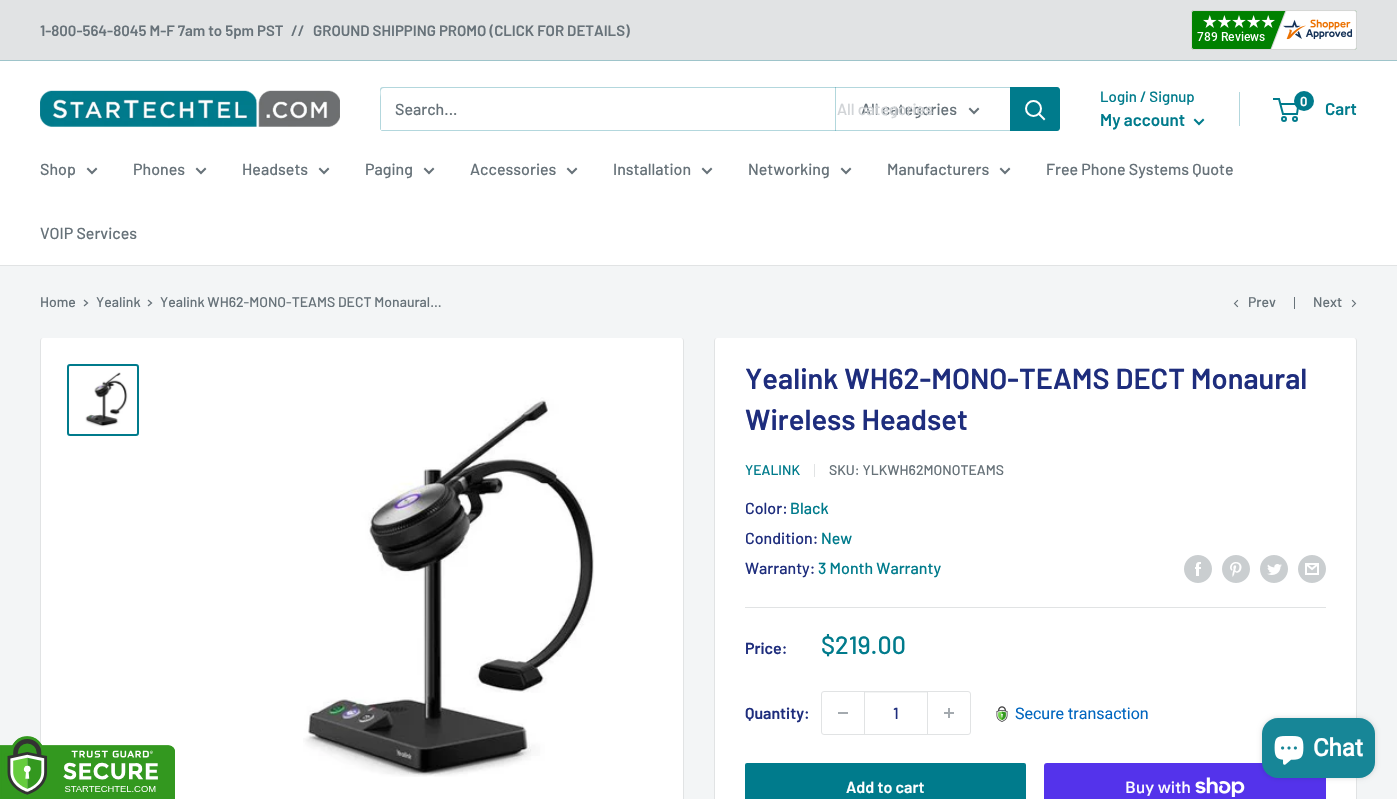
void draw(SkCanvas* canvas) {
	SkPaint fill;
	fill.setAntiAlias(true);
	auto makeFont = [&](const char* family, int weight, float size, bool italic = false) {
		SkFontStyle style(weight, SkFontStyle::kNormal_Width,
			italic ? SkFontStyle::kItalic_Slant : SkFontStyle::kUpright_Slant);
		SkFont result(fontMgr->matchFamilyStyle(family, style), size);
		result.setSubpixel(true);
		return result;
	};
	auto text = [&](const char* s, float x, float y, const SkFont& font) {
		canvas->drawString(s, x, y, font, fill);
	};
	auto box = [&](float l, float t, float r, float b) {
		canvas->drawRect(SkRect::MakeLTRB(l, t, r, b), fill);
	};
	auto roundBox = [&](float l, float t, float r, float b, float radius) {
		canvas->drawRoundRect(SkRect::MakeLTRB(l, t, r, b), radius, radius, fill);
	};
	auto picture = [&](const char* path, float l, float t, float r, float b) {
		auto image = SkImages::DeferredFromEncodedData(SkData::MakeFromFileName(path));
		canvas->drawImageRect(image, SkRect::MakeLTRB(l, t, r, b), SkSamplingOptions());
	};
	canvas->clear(0xFFF3F5F6);
	fill.setColor(0xFFE1E3E4);
	box(0, 0, 1397, 60);
	fill.setColor(0xFF9EC4CA);
	box(0, 60, 1397, 61);
	picture("image0.png", 1191, 10, 1357, 50);
	fill.setColor(0xFFFFFFFF);
	box(0, 61, 1397, 265);
	picture("image1.png", 40, 90, 340, 127);
	fill.setColor(0xFFB3D7DD);
	canvas->drawPath(SkPathBuilder().moveTo(381, 130).cubicTo(381, 131, 382, 131, 383, 131).lineTo(1057, 131).cubicTo(1059, 131, 1060, 130, 1060, 128).lineTo(1060, 90).cubicTo(1060, 89, 1060, 88, 1059, 88).lineTo(1059, 121).cubicTo(1059, 123, 1061, 130, 1056, 130).close().detach(), fill);
	canvas->drawPath(SkPathBuilder().moveTo(384, 88).lineTo(1059, 88).cubicTo(1059, 87, 1058, 87, 1057, 87).lineTo(383, 87).cubicTo(381, 87, 380, 88, 380, 90).lineTo(380, 128).cubicTo(380, 129, 380, 130, 381, 130).lineTo(381, 97).cubicTo(381, 95, 379, 88, 384, 88).close().detach(), fill);
	fill.setColor(0x4D007B8C);
	box(835, 87, 836, 131);
	fill.setStyle(SkPaint::kStroke_Style);
	fill.setStrokeWidth(2);
	fill.setStrokeCap(SkPaint::kSquare_Cap);
	fill.setColor(0xFF677279);
	canvas->drawPath(SkPathBuilder().moveTo(978, 109).lineTo(974, 113).lineTo(970, 109).detach(), fill);
	fill.setStyle(SkPaint::kFill_Style);
	fill.setColor(0xFF007B8C);
	canvas->drawPath(SkPathBuilder().moveTo(1010, 87).lineTo(1057, 87).cubicTo(1058.5f, 87, 1060, 88.5f, 1060, 90).lineTo(1060, 128).cubicTo(1060, 129.5f, 1058.5f, 131, 1057, 131).lineTo(1010, 131).close().detach(), fill);
	fill.setStyle(SkPaint::kStroke_Style);
	fill.setColor(0xFFFFFFFF);
	canvas->drawPath(SkPathBuilder().moveTo(1044, 119).lineTo(1039, 114).detach(), fill);
	fill.setStrokeCap(SkPaint::kButt_Cap);
	canvas->drawCircle(1033.5f, 108.5f, 7.5f, fill);
	fill.setStyle(SkPaint::kFill_Style);
	fill.setColor(0xFFB3D7DD);
	box(1239, 92, 1240, 126);
	fill.setStyle(SkPaint::kStroke_Style);
	fill.setStrokeCap(SkPaint::kSquare_Cap);
	fill.setColor(0xFF007B8C);
	canvas->drawPath(SkPathBuilder().moveTo(1203, 120).lineTo(1199, 124).lineTo(1195, 120).detach(), fill);
	fill.setStrokeCap(SkPaint::kButt_Cap);
	canvas->drawCircle(1284, 119, 2, fill);
	canvas->drawCircle(1295, 119, 2, fill);
	canvas->drawPath(SkPathBuilder().moveTo(1280.5f, 104).lineTo(1298.5f, 104).lineTo(1297, 114).lineTo(1283, 114).lineTo(1279, 99).lineTo(1273, 99).detach(), fill);
	fill.setStyle(SkPaint::kFill_Style);
	canvas->drawCircle(1304, 101, 10, fill);
	fill.setColor(0xFFE1E3E4);
	box(0, 265, 1397, 266);
	fill.setStyle(SkPaint::kStroke_Style);
	fill.setStrokeCap(SkPaint::kSquare_Cap);
	fill.setColor(0xFF677279);
	canvas->drawPath(SkPathBuilder().moveTo(96, 169).lineTo(92, 173).lineTo(88, 169).detach(), fill);
	canvas->drawPath(SkPathBuilder().moveTo(205, 169).lineTo(201, 173).lineTo(197, 169).detach(), fill);
	canvas->drawPath(SkPathBuilder().moveTo(328, 169).lineTo(324, 173).lineTo(320, 169).detach(), fill);
	canvas->drawPath(SkPathBuilder().moveTo(433, 169).lineTo(429, 173).lineTo(425, 169).detach(), fill);
	canvas->drawPath(SkPathBuilder().moveTo(576, 169).lineTo(572, 173).lineTo(568, 169).detach(), fill);
	canvas->drawPath(SkPathBuilder().moveTo(711, 169).lineTo(707, 173).lineTo(703, 169).detach(), fill);
	canvas->drawPath(SkPathBuilder().moveTo(850, 169).lineTo(846, 173).lineTo(842, 169).detach(), fill);
	canvas->drawPath(SkPathBuilder().moveTo(1009, 169).lineTo(1005, 173).lineTo(1001, 169).detach(), fill);
	fill.setStrokeWidth(1.3f);
	canvas->drawPath(SkPathBuilder().moveTo(84.5f, 300.5f).lineTo(87.5f, 303).lineTo(84.5f, 305.5f).detach(), fill);
	canvas->drawPath(SkPathBuilder().moveTo(148.5f, 300.5f).lineTo(151.5f, 303).lineTo(148.5f, 305.5f).detach(), fill);
	fill.setStrokeWidth(1.1f);
	canvas->drawPath(SkPathBuilder().moveTo(1237.5f, 306.5f).lineTo(1234.5f, 303.5f).lineTo(1237.5f, 300.5f).detach(), fill);
	fill.setStyle(SkPaint::kFill_Style);
	box(1294, 297, 1295, 309);
	fill.setStyle(SkPaint::kStroke_Style);
	canvas->drawPath(SkPathBuilder().moveTo(1352.5f, 300.5f).lineTo(1355.5f, 303.5f).lineTo(1352.5f, 306.5f).detach(), fill);
	fill.setStyle(SkPaint::kFill_Style);
	fill.setColor(0xFFFFFFFF);
	roundBox(40, 338, 684, 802, 3);
	fill.setColor(0xFFE1E3E4);
	canvas->drawPath(SkPathBuilder(SkPathFillType::kEvenOdd).moveTo(43, 338).lineTo(681, 338).cubicTo(683, 338, 684, 339, 684, 341).lineTo(684, 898).cubicTo(684, 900, 683, 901, 681, 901).lineTo(43, 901).cubicTo(41, 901, 40, 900, 40, 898).lineTo(40, 341).cubicTo(40, 339, 41, 338, 43, 338).close().moveTo(43, 338).lineTo(681, 338).cubicTo(682, 338, 683, 339, 683, 341).lineTo(683, 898).cubicTo(683, 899, 682, 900, 681, 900).lineTo(43, 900).cubicTo(42, 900, 41, 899, 41, 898).lineTo(41, 341).cubicTo(41, 339, 42, 338, 43, 338).close().detach(), fill);
	fill.setStyle(SkPaint::kStroke_Style);
	fill.setStrokeWidth(2);
	fill.setStrokeCap(SkPaint::kButt_Cap);
	fill.setColor(0xFF007B8C);
	canvas->drawRoundRect(SkRect::MakeLTRB(68, 365, 138, 435), 2, 2, fill);
	picture("image2.png", 85, 372, 128, 427);
	picture("image3.png", 303, 397, 595, 777);
	fill.setStyle(SkPaint::kFill_Style);
	fill.setColor(0xFFFFFFFF);
	roundBox(714, 338, 1357, 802, 3);
	fill.setColor(0xFFE1E3E4);
	canvas->drawPath(SkPathBuilder(SkPathFillType::kEvenOdd).moveTo(717, 338).lineTo(1354, 338).cubicTo(1356, 338, 1357, 339, 1357, 341).lineTo(1357, 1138).cubicTo(1357, 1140, 1356, 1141, 1354, 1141).lineTo(717, 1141).cubicTo(715, 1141, 714, 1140, 714, 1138).lineTo(714, 341).cubicTo(714, 339, 715, 338, 717, 338).close().moveTo(717, 338).lineTo(1354, 338).cubicTo(1355, 338, 1356, 339, 1356, 341).lineTo(1356, 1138).cubicTo(1356, 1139, 1355, 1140, 1354, 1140).lineTo(717, 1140).cubicTo(716, 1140, 715, 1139, 715, 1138).lineTo(715, 341).cubicTo(715, 339, 716, 338, 717, 338).close().detach(), fill);
	box(814, 464, 815, 477);
	picture("image4.png", 1184, 555, 1212, 583);
	picture("image5.png", 1222, 555, 1250, 583);
	picture("image6.png", 1260, 555, 1288, 583);
	picture("image7.png", 1298, 555, 1326, 583);
	box(745, 607, 1326, 608);
	fill.setStyle(SkPaint::kStroke_Style);
	fill.setStrokeWidth(1);
	canvas->drawRoundRect(SkRect::MakeLTRB(821.5f, 691.5f, 970.5f, 734.5f), 2.5f, 2.5f, fill);
	fill.setStyle(SkPaint::kFill_Style);
	fill.setColor(0xFFA4AAAF);
	box(838, 712, 848, 714);
	fill.setColor(0xFFF3F4F4);
	box(865, 692, 927, 693);
	fill.setColor(0xFFE1E3E4);
	box(927, 692, 928, 734);
	box(864, 692, 865, 734);
	picture("image8.png", 944, 708, 954, 718);
	picture("image9.png", 996, 706, 1008, 722);
	fill.setColor(0xFF007B8C);
	roundBox(745, 763, 1026, 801, 2);
	fill.setColor(0xFF5433EB);
	roundBox(1044, 763, 1326, 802, 3);
	picture("image10.png", 1195, 777, 1245, 797);
	picture("image11.png", 0, 736, 175, 799);
	fill.setColor(0x26000000);
	fill.setMaskFilter(SkMaskFilter::MakeBlur(kNormal_SkBlurStyle, 2.5f));
	canvas->drawRoundRect(SkRect::MakeLTRB(1262, 718, 1375, 778), 16, 16, fill);
	fill.setMaskFilter(nullptr);
	fill.setColor(0xFF178697);
	roundBox(1262, 718, 1375, 778, 16);
	picture("image12.png", 1274, 736, 1304, 765);
	auto font1 = makeFont("Barlow", 600, 15);
	fill.setColor(0xFF677279);
	text("1-800-564-8045 M-F 7am to 5pm PST", 40, 36, font1);
	text("//", 291, 36, font1);
	text("GROUND SHIPPING PROMO (CLICK FOR DETAILS)", 313, 36, font1);
	auto font2 = makeFont("Barlow", 500, 16);
	text("Search...", 395, 115, font2);
	text("All categories", 861, 115, font2);
	fill.setColor(0xFFD1D4D7);
	text("All categories", 837, 115, font2);
	auto font3 = makeFont("Barlow", 500, 15);
	fill.setColor(0xFF007B8C);
	text("Login / Signup", 1100, 102, font3);
	auto font4 = makeFont("Barlow", 600, 17);
	text("My account", 1100, 126, font4);
	auto font5 = makeFont("Barlow", 600, 13);
	fill.setColor(0xFFFFFFFF);
	text("0", 1300, 106, font5);
	fill.setColor(0xFF007B8C);
	text("Cart", 1325, 115, font4);
	fill.setColor(0xFF677279);
	text("Shop", 40, 175, font2);
	text("Phones", 133, 175, font2);
	text("Headsets", 242, 175, font2);
	text("Paging", 365, 175, font2);
	text("Accessories", 470, 175, font2);
	text("Installation", 613, 175, font2);
	text("Networking", 748, 175, font2);
	text("Manufacturers", 887, 175, font2);
	text("Free Phone Systems Quote", 1046, 175, font2);
	text("VOIP Services", 40, 239, font2);
	auto font6 = makeFont("Barlow", 500, 14);
	text("Home", 40, 307, font6);
	text("Yealink", 96, 307, font6);
	text("Yealink WH62-MONO-TEAMS DECT Monaural...", 160, 307, font6);
	text("Prev", 1248, 307, font6);
	text("Next", 1313, 307, font6);
	auto font7 = makeFont("Barlow", 600, 29);
	fill.setColor(0xFF1E2D7D);
	text("Yealink WH62-MONO-TEAMS DECT Monaural", 745, 389, font7);
	text("Wireless Headset", 745, 430, font7);
	fill.setColor(0xFF007B8C);
	text("YEALINK", 745, 475, font6);
	fill.setColor(0xFF677279);
	text("SKU: YLKWH62MONOTEAMS", 829, 475, font6);
	fill.setColor(0xFF1E2D7D);
	text("Color:", 745, 514, font2);
	fill.setColor(0xFF007B8C);
	text("Black", 790, 514, font2);
	fill.setColor(0xFF1E2D7D);
	text("Condition:", 745, 544, font2);
	fill.setColor(0xFF007B8C);
	text("New", 821, 544, font2);
	fill.setColor(0xFF1E2D7D);
	text("Warranty:", 745, 574, font2);
	fill.setColor(0xFF007B8C);
	text("3 Month Warranty", 818, 574, font2);
	auto font8 = makeFont("Barlow", 600, 16);
	fill.setColor(0xFF1E2D7D);
	text("Price:", 745, 654, font8);
	auto font9 = makeFont("Barlow", 500, 25);
	fill.setColor(0xFF007B8C);
	text("$219.00", 821, 654, font9);
	fill.setColor(0xFF1E2D7D);
	text("Quantity:", 745, 719, font8);
	text("1", 893, 719, font2);
	auto font10 = makeFont("Roboto", 400, 16);
	fill.setColor(0xFF0066C0);
	text("Secure transaction", 1015, 719, font10);
	fill.setColor(0xFFFFFFFF);
	text("Add to cart", 846, 793, font8);
	auto font11 = makeFont("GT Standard", 500, 16);
	text("Buy with", 1125, 793, font11);
	auto font12 = makeFont("Roboto", 700, 24);
	text("Chat", 1313, 756, font12);
}
